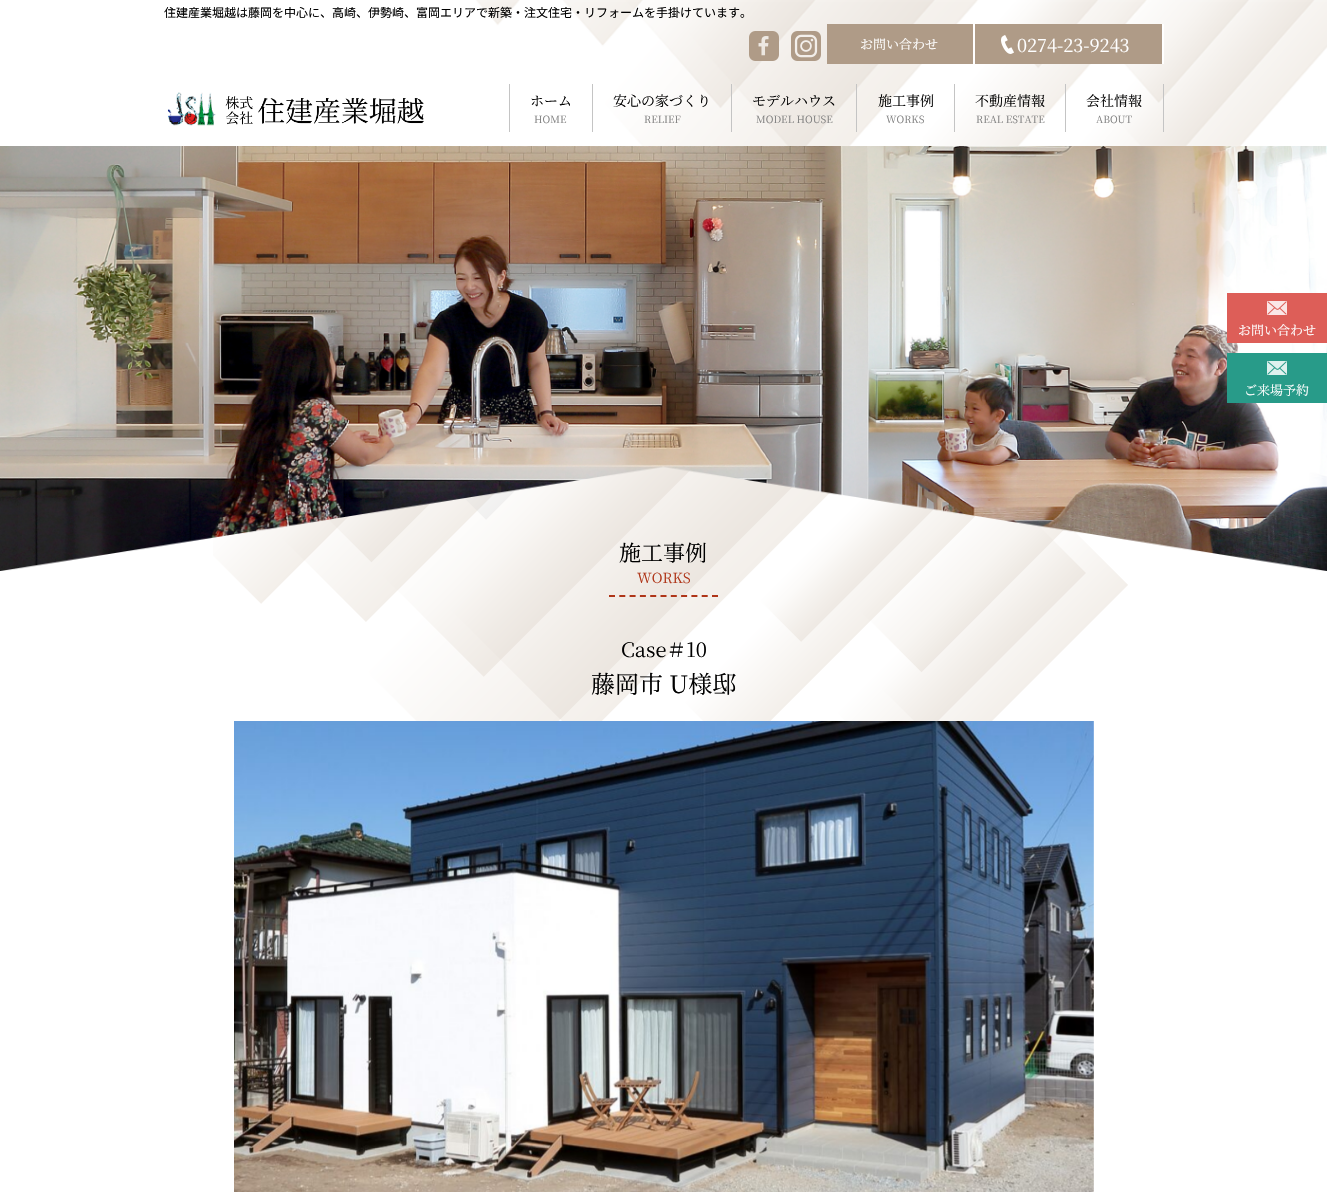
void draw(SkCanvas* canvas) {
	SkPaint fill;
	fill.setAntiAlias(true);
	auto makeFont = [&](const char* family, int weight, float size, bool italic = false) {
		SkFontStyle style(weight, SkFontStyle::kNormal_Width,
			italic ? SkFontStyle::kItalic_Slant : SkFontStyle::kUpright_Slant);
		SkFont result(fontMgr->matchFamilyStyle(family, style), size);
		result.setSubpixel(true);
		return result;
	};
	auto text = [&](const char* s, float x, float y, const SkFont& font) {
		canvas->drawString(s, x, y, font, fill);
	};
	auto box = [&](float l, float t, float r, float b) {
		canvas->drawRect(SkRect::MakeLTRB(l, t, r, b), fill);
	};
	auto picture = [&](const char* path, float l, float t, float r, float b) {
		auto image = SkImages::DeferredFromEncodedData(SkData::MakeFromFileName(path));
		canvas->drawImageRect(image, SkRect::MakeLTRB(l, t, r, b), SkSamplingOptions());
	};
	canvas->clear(0xFFFFFFFF);
	picture("image0.png", 476, 0, 1327, 146);
	picture("image1.png", 749, 31, 779, 61);
	picture("image2.png", 791, 31, 821, 61);
	fill.setColor(0xFFAF9B87);
	box(827, 24, 973, 64);
	box(975, 24, 1162, 64);
	picture("image3.png", 1001, 35, 1014, 54);
	fill.setColor(0xFFFFFFFF);
	box(1162, 24, 1164, 64);
	picture("image4.png", 167, 92, 424, 126);
	fill.setColor(0xFFC4C4C4);
	box(1163, 84, 1164, 132);
	box(509, 84, 510, 132);
	box(592, 84, 593, 132);
	box(731, 84, 732, 132);
	box(856, 84, 857, 132);
	box(954, 84, 955, 132);
	box(1065, 84, 1066, 132);
	picture("image7.png", 213, 466, 1128, 721);
	picture("image8.png", 0, 146, 1327, 571);
	fill.setColor(0xFFDD5E58);
	box(1227, 293, 1327, 343);
	picture("image5.png", 1267, 301, 1287, 315);
	fill.setColor(0xFF289B89);
	box(1227, 353, 1327, 403);
	picture("image6.png", 1267, 361, 1287, 375);
	fill.setStyle(SkPaint::kStroke_Style);
	fill.setStrokeWidth(2);
	fill.setColor(0xFFAF3518);
	fill.setPathEffect(SkDashPathEffect::Make({{6, 4.3f}}, 0));
	canvas->drawPath(SkPathBuilder().moveTo(609, 596).lineTo(718, 596).detach(), fill);
	fill.setPathEffect(nullptr);
	picture("image9.png", 234, 721, 1094, 1192);
	auto font1 = makeFont("Noto Sans JP", 400, 12);
	fill.setStyle(SkPaint::kFill_Style);
	fill.setColor(0xFF000000);
	text("住建産業堀越は藤岡を中心に、高崎、伊勢崎、富岡エリアで新築・注文住宅・リフォームを手掛けています。", 164, 17, font1);
	auto font2 = makeFont("Noto Serif JP", 400, 13);
	fill.setColor(0xFFFFFFFF);
	text("お問い合わせ", 860, 49, font2);
	auto font3 = makeFont("Noto Serif JP", 400, 18);
	text("0274-23-9243", 1017, 52, font3);
	auto font4 = makeFont("Noto Serif JP", 400, 14);
	fill.setColor(0xFF000000);
	text("ホーム", 530, 106, font4);
	auto font5 = makeFont("Noto Serif JP", 400, 10);
	fill.setColor(0xFF7F7F7F);
	text("HOME", 534, 123, font5);
	fill.setColor(0xFF000000);
	text("安心の家づくり", 613, 106, font4);
	fill.setColor(0xFF7F7F7F);
	text("RELIEF", 644, 123, font5);
	fill.setColor(0xFF000000);
	text("モデルハウス", 752, 106, font4);
	fill.setColor(0xFF7F7F7F);
	text("MODEL HOUSE", 756, 123, font5);
	fill.setColor(0xFF000000);
	text("施工事例", 878, 106, font4);
	fill.setColor(0xFF7F7F7F);
	text("WORKS", 886, 123, font5);
	fill.setColor(0xFF000000);
	text("不動産情報", 975, 106, font4);
	fill.setColor(0xFF7F7F7F);
	text("REAL ESTATE", 976, 123, font5);
	fill.setColor(0xFF000000);
	text("会社情報", 1086, 106, font4);
	fill.setColor(0xFF7F7F7F);
	text("ABOUT", 1096, 123, font5);
	fill.setColor(0xFFFFFFFF);
	text("お問い合わせ", 1238, 335, font2);
	text("ご来場予約", 1244, 395, font2);
	auto font6 = makeFont("Noto Serif JP", 400, 22);
	fill.setColor(0xFF000000);
	text("施工事例", 619, 561, font6);
	fill.setColor(0xFFAF3518);
	text("WORKS", 637, 583, font4);
	auto font7 = makeFont("Noto Serif JP", 400, 20);
	fill.setColor(0xFF000000);
	text("Case＃10", 621, 657, font7);
	auto font8 = makeFont("Noto Serif JP", 400, 24);
	text("藤岡市 U様邸", 591, 693, font8);
}
